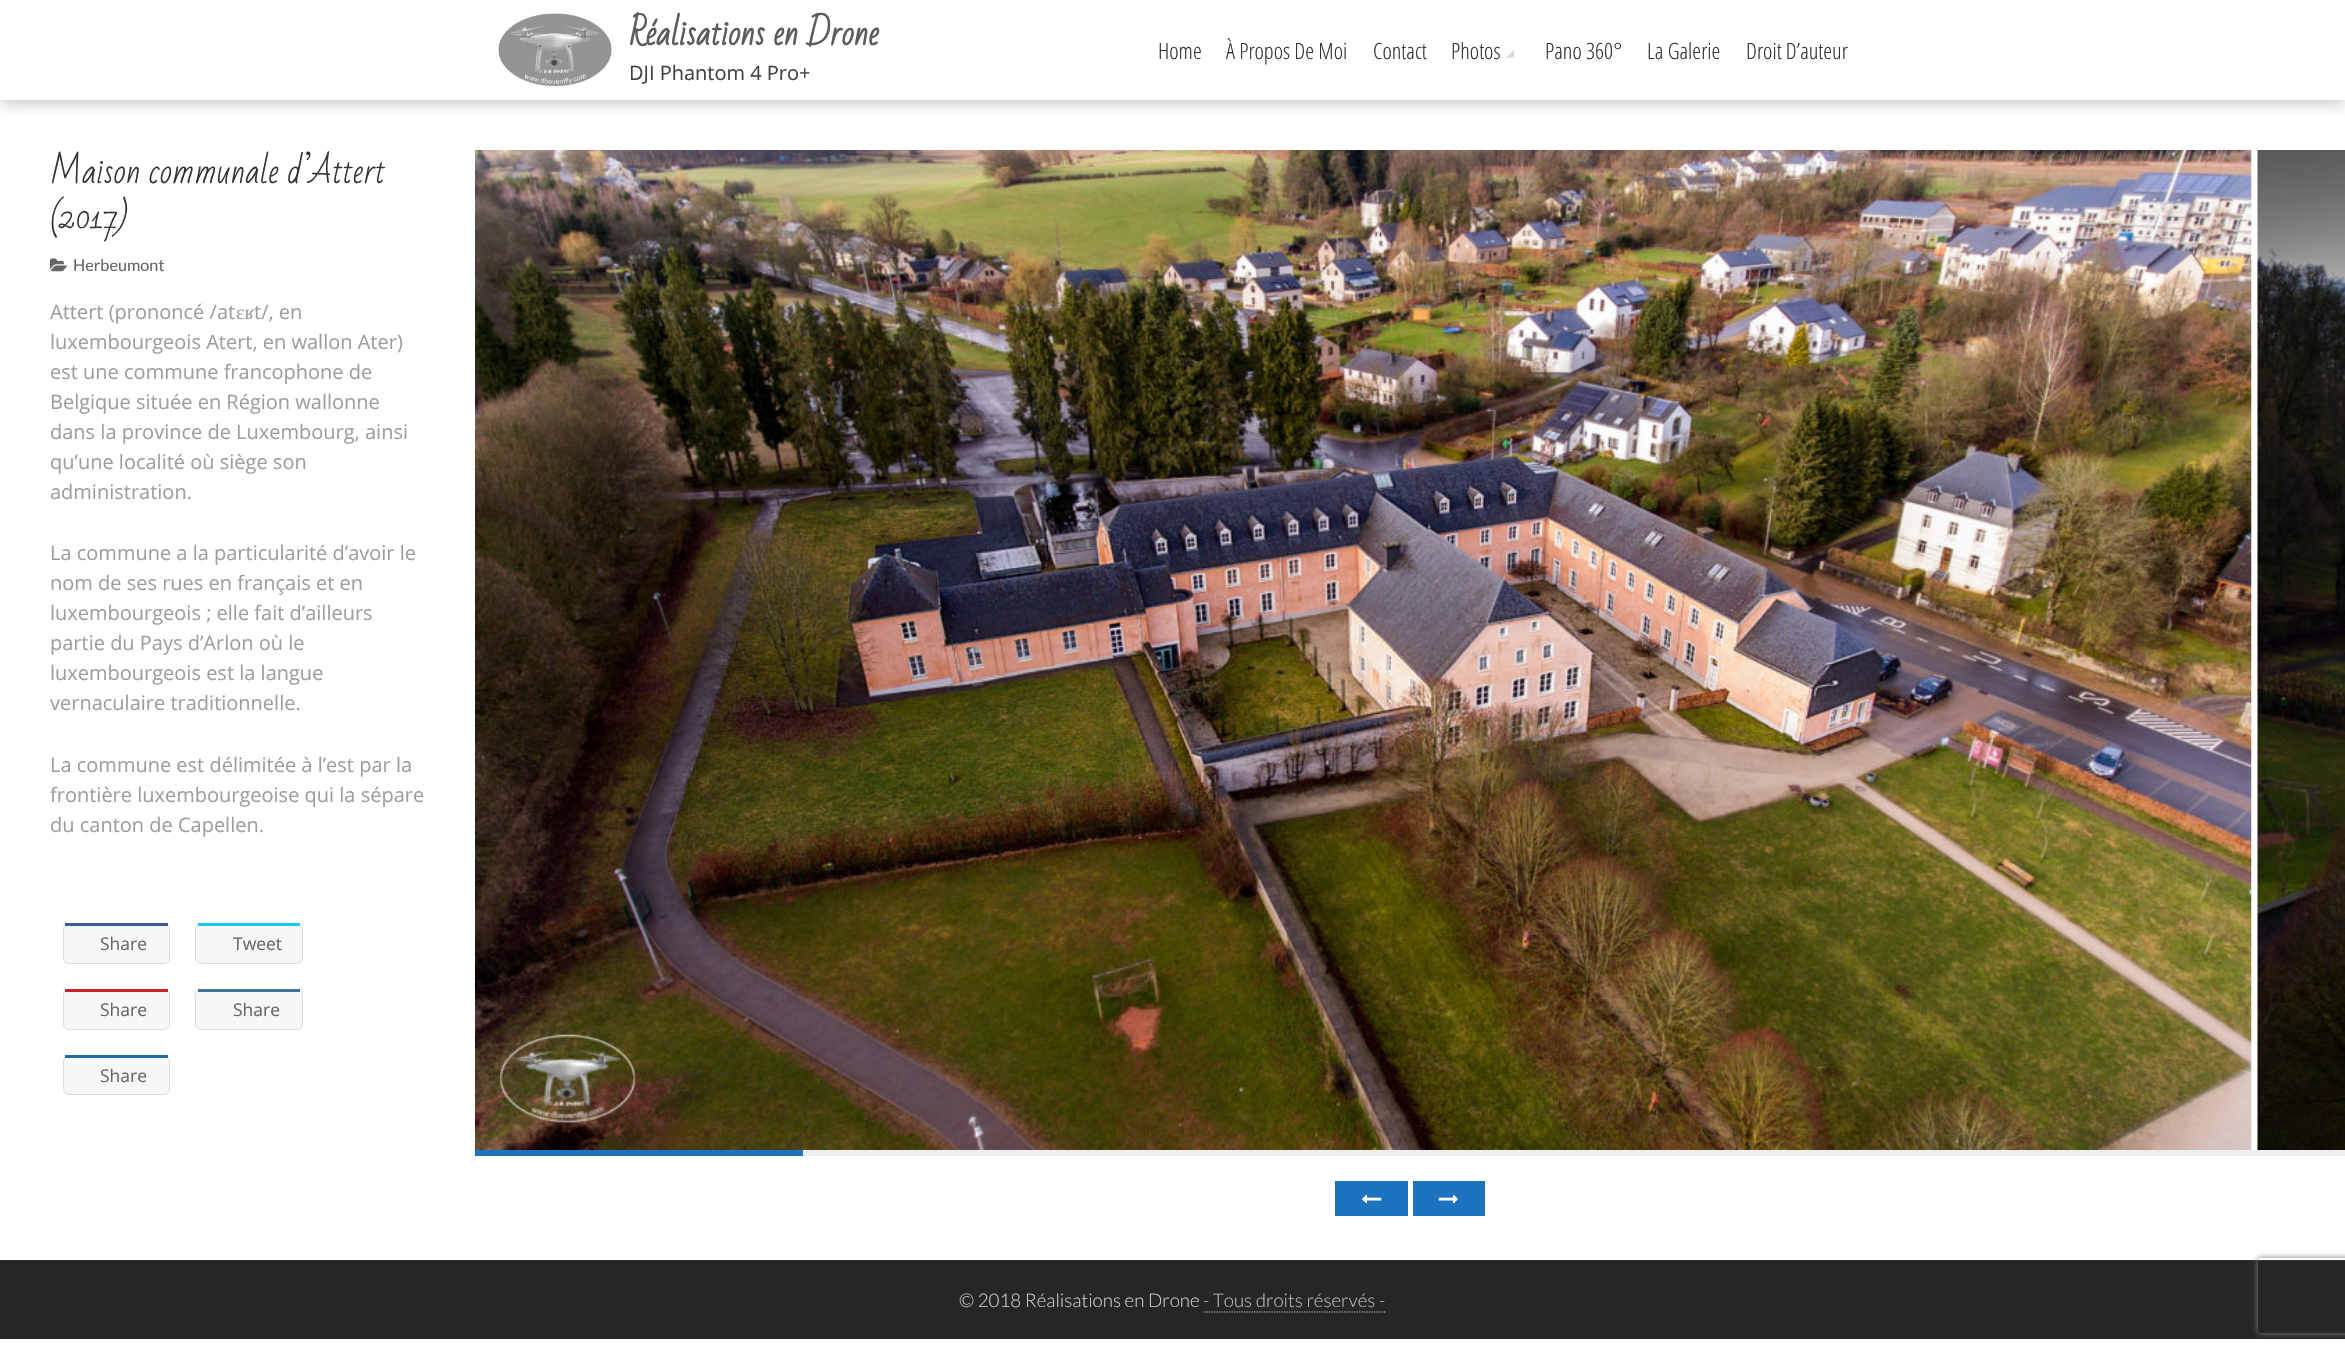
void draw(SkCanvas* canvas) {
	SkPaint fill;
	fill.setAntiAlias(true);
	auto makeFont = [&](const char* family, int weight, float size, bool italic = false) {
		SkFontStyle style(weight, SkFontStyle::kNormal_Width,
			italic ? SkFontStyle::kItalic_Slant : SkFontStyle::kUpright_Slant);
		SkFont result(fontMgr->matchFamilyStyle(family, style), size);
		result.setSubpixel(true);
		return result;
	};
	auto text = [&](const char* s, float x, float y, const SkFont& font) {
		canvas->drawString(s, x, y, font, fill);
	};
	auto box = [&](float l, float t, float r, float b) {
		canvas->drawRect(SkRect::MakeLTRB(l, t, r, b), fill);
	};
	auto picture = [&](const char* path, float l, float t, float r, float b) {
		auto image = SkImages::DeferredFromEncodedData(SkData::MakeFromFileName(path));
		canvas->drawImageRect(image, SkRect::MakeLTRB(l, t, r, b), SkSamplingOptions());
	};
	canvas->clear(0xFFFFFFFF);
	canvas->save();
	canvas->clipRect(SkRect::MakeLTRB(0, 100, 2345, 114));
	fill.setColor(0x4D333333);
	fill.setMaskFilter(SkMaskFilter::MakeBlur(kNormal_SkBlurStyle, 7.5f));
	canvas->drawRect(SkRect::MakeLTRB(0, 3, 2345, 103), fill);
	fill.setMaskFilter(nullptr);
	canvas->restore();
	picture("image0.png", 498, 13, 612, 87);
	fill.setColor(0xFFD6D6D6);
	canvas->drawPath(SkPathBuilder().moveTo(1514, 50).lineTo(1514, 57.5f).lineTo(1510, 54).close().detach(), fill);
	canvas->drawPath(SkPathBuilder().moveTo(1514, 57.5f).lineTo(1506, 57.5f).lineTo(1510, 54).close().detach(), fill);
	picture("image1.png", 50, 258, 67, 272);
	fill.setColor(0xFFF7F7F7);
	canvas->drawRoundRect(SkRect::MakeLTRB(63.5f, 923.5f, 169.5f, 963.5f), 5.5f, 5.5f, fill);
	fill.setStyle(SkPaint::kStroke_Style);
	fill.setStrokeWidth(1);
	fill.setColor(0xFFDCDCDC);
	canvas->drawRoundRect(SkRect::MakeLTRB(63.5f, 923.5f, 169.5f, 963.5f), 5.5f, 5.5f, fill);
	fill.setStyle(SkPaint::kFill_Style);
	fill.setColor(0xFF3B5998);
	box(65, 923, 168, 926);
	fill.setColor(0xFFF7F7F7);
	canvas->drawRoundRect(SkRect::MakeLTRB(195.5f, 923.5f, 302.5f, 963.5f), 5.5f, 5.5f, fill);
	fill.setStyle(SkPaint::kStroke_Style);
	fill.setColor(0xFFDCDCDC);
	canvas->drawRoundRect(SkRect::MakeLTRB(195.5f, 923.5f, 302.5f, 963.5f), 5.5f, 5.5f, fill);
	fill.setStyle(SkPaint::kFill_Style);
	fill.setColor(0xFF1DCAFF);
	box(198, 923, 300, 926);
	fill.setColor(0xFFF7F7F7);
	canvas->drawRoundRect(SkRect::MakeLTRB(63.5f, 989.5f, 169.5f, 1029.5f), 5.5f, 5.5f, fill);
	fill.setStyle(SkPaint::kStroke_Style);
	fill.setColor(0xFFDCDCDC);
	canvas->drawRoundRect(SkRect::MakeLTRB(63.5f, 989.5f, 169.5f, 1029.5f), 5.5f, 5.5f, fill);
	fill.setStyle(SkPaint::kFill_Style);
	fill.setColor(0xFFC92228);
	box(65, 989, 168, 992);
	fill.setColor(0xFFF7F7F7);
	canvas->drawRoundRect(SkRect::MakeLTRB(195.5f, 989.5f, 302.5f, 1029.5f), 5.5f, 5.5f, fill);
	fill.setStyle(SkPaint::kStroke_Style);
	fill.setColor(0xFFDCDCDC);
	canvas->drawRoundRect(SkRect::MakeLTRB(195.5f, 989.5f, 302.5f, 1029.5f), 5.5f, 5.5f, fill);
	fill.setStyle(SkPaint::kFill_Style);
	fill.setColor(0xFF3F729B);
	box(198, 989, 300, 992);
	fill.setColor(0xFFF7F7F7);
	canvas->drawRoundRect(SkRect::MakeLTRB(63.5f, 1055.5f, 169.5f, 1094.5f), 5.5f, 5.5f, fill);
	fill.setStyle(SkPaint::kStroke_Style);
	fill.setColor(0xFFDCDCDC);
	canvas->drawRoundRect(SkRect::MakeLTRB(63.5f, 1055.5f, 169.5f, 1094.5f), 5.5f, 5.5f, fill);
	fill.setStyle(SkPaint::kFill_Style);
	fill.setColor(0xFF2169A8);
	box(65, 1055, 168, 1058);
	picture("image2.png", 475, 150, 2252, 1150);
	picture("image3.png", 2257, 150, 2345, 1150);
	fill.setColor(0xFFEEEEEE);
	box(803, 1150, 2345, 1156);
	fill.setColor(0xFF1E73BE);
	box(475, 1150, 803, 1156);
	box(1335, 1181, 1408, 1216);
	picture("image4.png", 1362, 1194, 1382, 1204);
	box(1413, 1181, 1485, 1216);
	picture("image5.png", 1438, 1194, 1458, 1204);
	fill.setColor(0xFF262626);
	box(0, 1261, 2345, 1339);
	fill.setColor(0xFF333333);
	box(0, 1260, 2345, 1261);
	fill.setStyle(SkPaint::kStroke_Style);
	fill.setStrokeWidth(1.2f);
	fill.setColor(0xFFCCCCCC);
	fill.setPathEffect(SkDashPathEffect::Make({{1.25f, 1.25f}}, 0));
	canvas->drawPath(SkPathBuilder().moveTo(1204, 1312).lineTo(1386, 1312).detach(), fill);
	fill.setPathEffect(nullptr);
	canvas->save();
	canvas->clipPath(SkPathBuilder(SkPathFillType::kEvenOdd).moveTo(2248, 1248).lineTo(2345, 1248).lineTo(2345, 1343).lineTo(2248, 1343).close().moveTo(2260.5f, 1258).lineTo(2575.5f, 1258).cubicTo(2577, 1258, 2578, 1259, 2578, 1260.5f).lineTo(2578, 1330.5f).cubicTo(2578, 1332, 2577, 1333, 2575.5f, 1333).lineTo(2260.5f, 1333).cubicTo(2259, 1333, 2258, 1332, 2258, 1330.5f).lineTo(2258, 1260.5f).cubicTo(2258, 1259, 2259, 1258, 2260.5f, 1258).close().detach(), true);
	fill.setStyle(SkPaint::kFill_Style);
	fill.setColor(0xFF808080);
	fill.setMaskFilter(SkMaskFilter::MakeBlur(kNormal_SkBlurStyle, 3));
	canvas->drawRoundRect(SkRect::MakeLTRB(2258, 1258, 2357, 1333), 2.5f, 2.5f, fill);
	fill.setMaskFilter(nullptr);
	canvas->restore();
	auto font1 = makeFont("Bad Script", 700, 32.5f);
	fill.setColor(0xFF5C5C5C);
	text("Réalisations en Drone", 629, 45, font1);
	auto font2 = makeFont("Open Sans", 400, 20);
	fill.setColor(0xFF414141);
	text("DJI Phantom 4 Pro+", 629, 80, font2);
	auto font3 = makeFont("Open Sans Condensed", 300, 22.5f);
	fill.setColor(0xFF333333);
	text("Home", 1158, 59, font3);
	text("À Propos De Moi", 1226, 59, font3);
	text("Contact", 1373, 59, font3);
	text("Photos", 1451, 59, font3);
	text("Pano 360°", 1545, 59, font3);
	text("La Galerie", 1647, 59, font3);
	text("Droit D’auteur", 1746, 59, font3);
	auto font4 = makeFont("Bad Script", 400, 32.5f);
	text("Maison communale d’Attert", 50, 183, font4);
	text("(2017)", 50, 228, font4);
	auto font5 = makeFont("Lato", 400, 16.25f);
	fill.setColor(0xFF666666);
	text("Herbeumont", 73, 271, font5);
	fill.setColor(0xFF9E9E9E);
	text("Attert (prononcé /at", 50, 319, font2);
	auto font6 = makeFont("Liberation Serif", 400, 20);
	text("εʁ", 236, 319, font6);
	text("t/, en", 254, 319, font2);
	text("luxembourgeois Atert, en wallon Ater)", 50, 349, font2);
	text("est une commune francophone de", 50, 379, font2);
	text("Belgique située en Région wallonne", 50, 409, font2);
	text("dans la province de Luxembourg, ainsi", 50, 439, font2);
	text("qu’une localité où siège son", 50, 469, font2);
	text("administration.", 50, 499, font2);
	text("La commune a la particularité d’avoir le", 50, 560, font2);
	text("nom de ses rues en français et en", 50, 590, font2);
	text("luxembourgeois ; elle fait d’ailleurs", 50, 620, font2);
	text("partie du Pays d’Arlon où le", 50, 650, font2);
	text("luxembourgeois est la langue", 50, 680, font2);
	text("vernaculaire traditionnelle.", 50, 710, font2);
	text("La commune est délimitée à l’est par la", 50, 772, font2);
	text("frontière luxembourgeoise qui la sépare", 50, 802, font2);
	text("du canton de Capellen.", 50, 832, font2);
	auto font7 = makeFont("Open Sans", 400, 17.5f);
	fill.setColor(0xFF666666);
	text("Share", 100, 950, font7);
	text("Tweet", 233, 950, font7);
	text("Share", 100, 1016, font7);
	text("Share", 233, 1016, font7);
	text("Share", 100, 1082, font7);
	auto font8 = makeFont("Lato", 300, 18.75f);
	fill.setColor(0xFFCCCCCC);
	text("© 2018 Réalisations en Drone", 959, 1307, font8);
	fill.setColor(0xFFBBBBBB);
	text("- Tous droits réservés -", 1203, 1307, font8);
}
